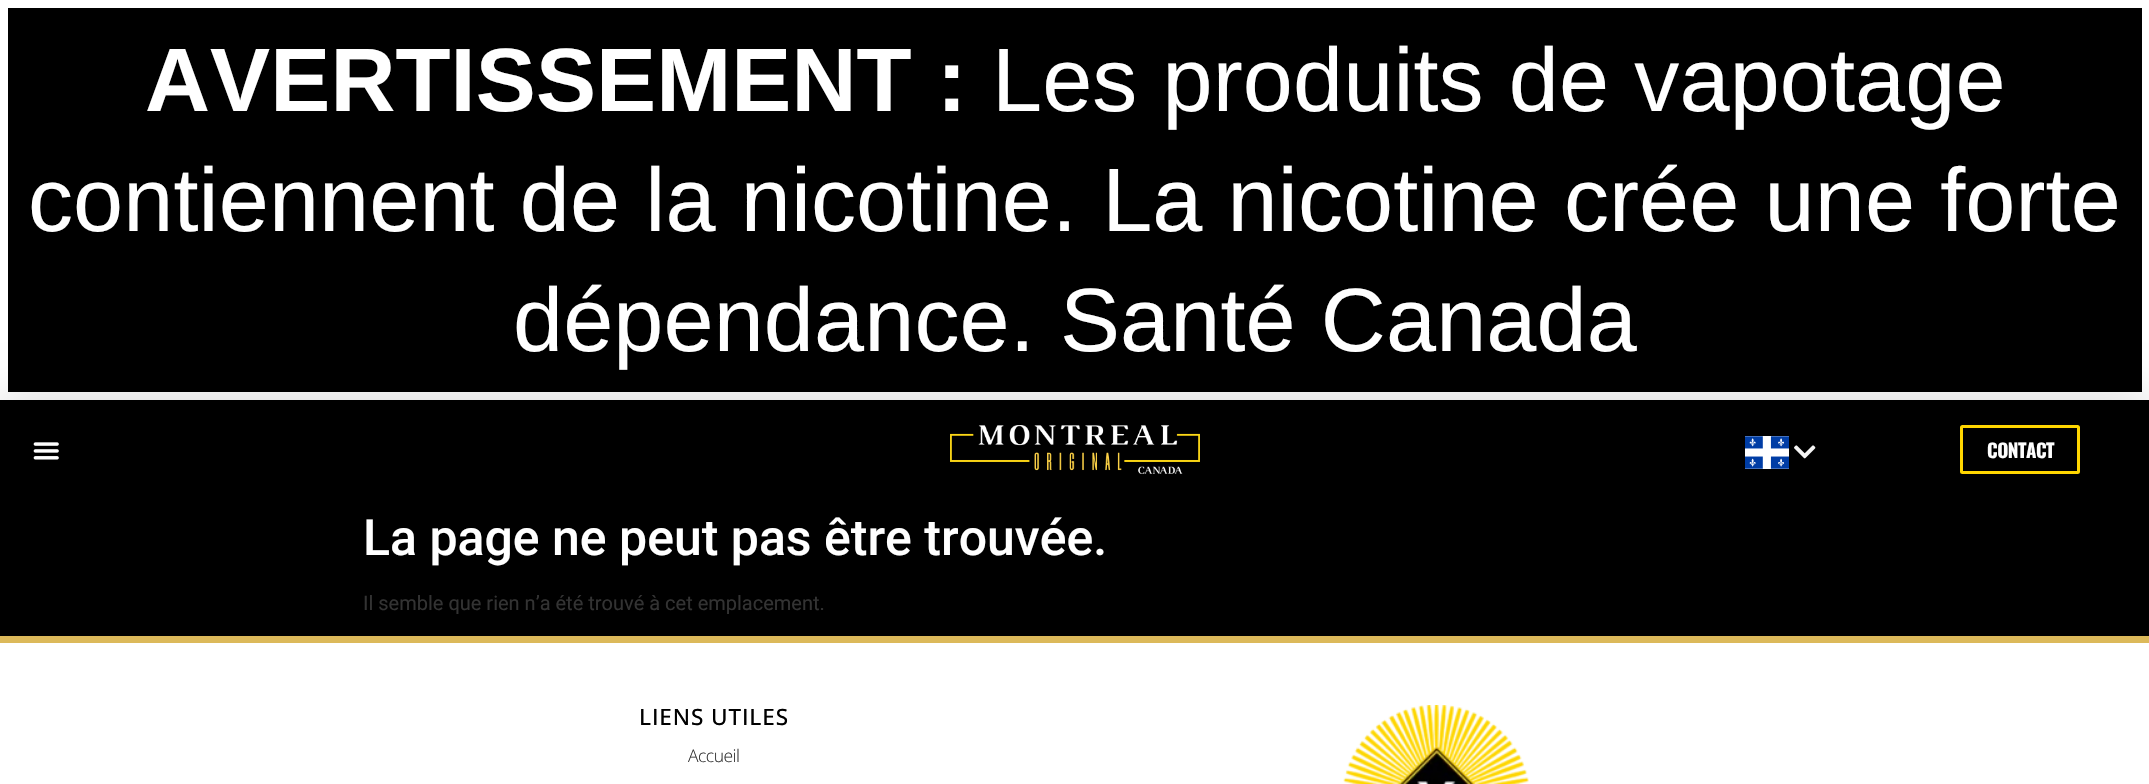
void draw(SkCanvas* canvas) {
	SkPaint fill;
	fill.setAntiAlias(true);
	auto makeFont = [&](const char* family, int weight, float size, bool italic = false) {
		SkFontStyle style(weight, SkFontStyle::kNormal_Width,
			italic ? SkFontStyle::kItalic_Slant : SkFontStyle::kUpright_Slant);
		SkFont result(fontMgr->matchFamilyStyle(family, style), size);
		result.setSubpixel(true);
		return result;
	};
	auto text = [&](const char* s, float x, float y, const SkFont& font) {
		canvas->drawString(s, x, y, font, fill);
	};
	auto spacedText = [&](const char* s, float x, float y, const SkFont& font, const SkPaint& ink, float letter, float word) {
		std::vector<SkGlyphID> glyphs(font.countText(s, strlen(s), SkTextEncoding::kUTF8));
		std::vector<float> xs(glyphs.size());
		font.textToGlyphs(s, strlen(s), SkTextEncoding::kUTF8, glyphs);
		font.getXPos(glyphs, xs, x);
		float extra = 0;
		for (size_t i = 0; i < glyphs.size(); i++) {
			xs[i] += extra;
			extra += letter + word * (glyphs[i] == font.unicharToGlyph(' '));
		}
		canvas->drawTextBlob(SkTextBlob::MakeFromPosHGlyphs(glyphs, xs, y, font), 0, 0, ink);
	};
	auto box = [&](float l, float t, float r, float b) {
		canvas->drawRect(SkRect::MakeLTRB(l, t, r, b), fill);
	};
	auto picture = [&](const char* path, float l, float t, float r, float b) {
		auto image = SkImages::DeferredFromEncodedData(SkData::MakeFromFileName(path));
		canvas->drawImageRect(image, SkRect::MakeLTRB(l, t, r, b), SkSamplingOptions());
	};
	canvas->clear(0xFF000000);
	fill.setStyle(SkPaint::kStroke_Style);
	fill.setStrokeWidth(8);
	fill.setColor(0xFFFFFFFF);
	canvas->drawRect(SkRect::MakeLTRB(4, 4, 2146, 396), fill);
	canvas->save();
	canvas->clipPath(SkPathBuilder(SkPathFillType::kEvenOdd).moveTo(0, 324).lineTo(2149, 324).lineTo(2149, 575).lineTo(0, 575).close().moveTo(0, 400).lineTo(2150, 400).lineTo(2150, 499).lineTo(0, 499).close().detach(), true);
	fill.setStyle(SkPaint::kFill_Style);
	fill.setColor(0x29000000);
	fill.setMaskFilter(SkMaskFilter::MakeBlur(kNormal_SkBlurStyle, 25));
	canvas->drawRect(SkRect::MakeLTRB(0, 400, 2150, 499), fill);
	fill.setMaskFilter(nullptr);
	canvas->restore();
	picture("image0.png", 33, 442, 59, 460);
	picture("image1.png", 950, 425, 1200, 474);
	picture("image2.png", 1745, 436, 1789, 469);
	picture("image3.png", 1794, 445, 1816, 459);
	fill.setStyle(SkPaint::kStroke_Style);
	fill.setStrokeWidth(3);
	fill.setColor(0xFFFFD600);
	canvas->drawRoundRect(SkRect::MakeLTRB(1961.5f, 426.5f, 2078.5f, 472.5f), 1, 1, fill);
	fill.setStyle(SkPaint::kFill_Style);
	fill.setColor(0xFFFFFFFF);
	box(0, 643, 2149, 784);
	fill.setColor(0xFFDCB95A);
	box(0, 636, 2149, 643);
	picture("image4.png", 1343, 705, 1529, 784);
	auto font1 = makeFont("Liberation Sans", 700, 90);
	fill.setColor(0xFFFFFFFF);
	spacedText("AVERTISSEMENT :", 145, 111, font1, fill, 0.12f, 0);
	auto font2 = makeFont("Liberation Sans", 400, 90);
	spacedText("Les produits de vapotage", 992, 111, font2, fill, 0.12f, 0);
	spacedText("contiennent de la nicotine. La nicotine crée une forte", 28, 231, font2, fill, 0.12f, 0);
	spacedText("dépendance. Santé Canada", 513, 351, font2, fill, 0.12f, 0);
	auto font3 = makeFont("Oswald", 700, 19);
	spacedText("CONTACT", 1987, 458, font3, fill, -0.5f, 0);
	auto font4 = makeFont("Roboto", 500, 50);
	text("La page ne peut pas être trouvée.", 363, 555, font4);
	auto font5 = makeFont("Roboto", 400, 20);
	fill.setColor(0xFF333333);
	text("Il semble que rien n’a été trouvé à cet emplacement.", 363, 610, font5);
	auto font6 = makeFont("Open Sans", 500, 22.5f);
	fill.setColor(0xFF000000);
	spacedText("LIENS UTILES", 639, 725, font6, fill, 0.9f, 0);
	auto font7 = makeFont("Open Sans", 300, 17.5f);
	fill.setColor(0xFF333333);
	spacedText("Accueil", 688, 762, font7, fill, -0.5f, 0);
}
